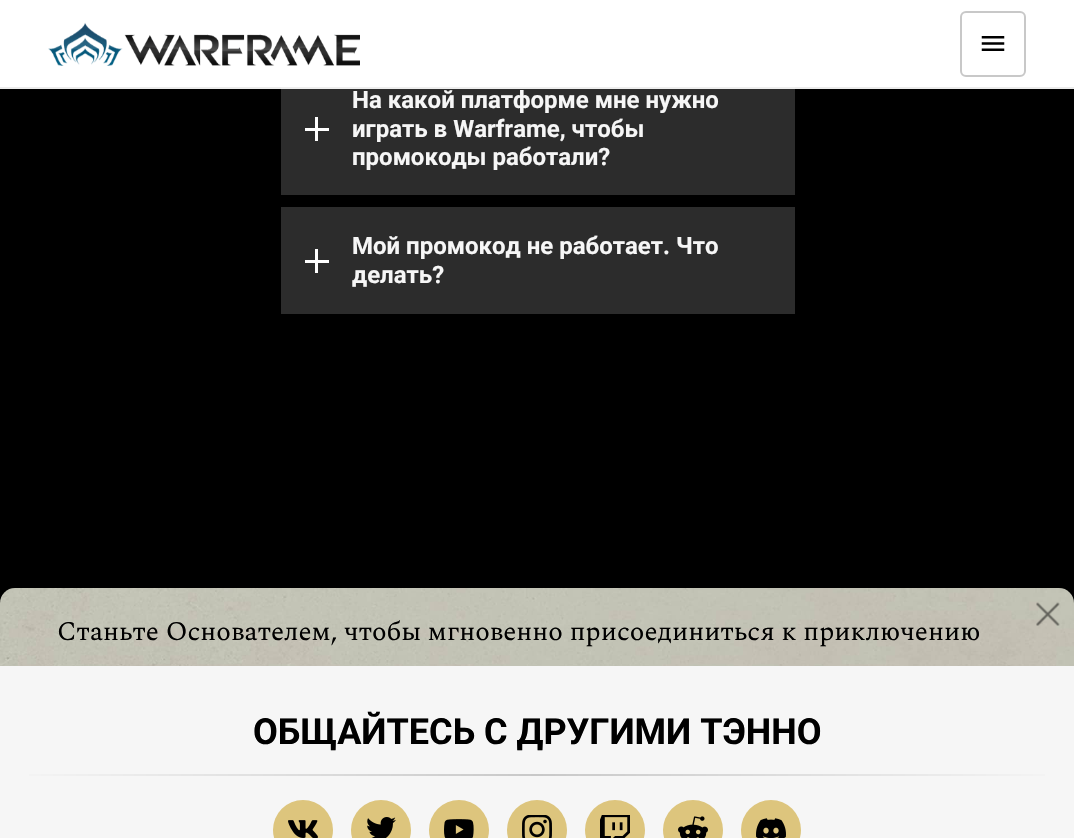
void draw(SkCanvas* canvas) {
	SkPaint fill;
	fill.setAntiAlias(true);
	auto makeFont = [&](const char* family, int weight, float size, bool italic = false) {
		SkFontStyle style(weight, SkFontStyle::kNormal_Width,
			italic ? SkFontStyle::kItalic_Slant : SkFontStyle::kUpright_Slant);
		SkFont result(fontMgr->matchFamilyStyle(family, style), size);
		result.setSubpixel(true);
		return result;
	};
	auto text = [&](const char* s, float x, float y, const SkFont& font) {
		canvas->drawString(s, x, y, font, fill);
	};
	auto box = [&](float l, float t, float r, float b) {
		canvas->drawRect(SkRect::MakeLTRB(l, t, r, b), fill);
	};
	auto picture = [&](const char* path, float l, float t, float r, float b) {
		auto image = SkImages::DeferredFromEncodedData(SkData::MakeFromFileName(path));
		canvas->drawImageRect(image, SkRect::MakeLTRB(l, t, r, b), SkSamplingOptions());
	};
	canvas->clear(0xFF000000);
	fill.setColor(0xFFFFFFFF);
	box(0, 0, 1074, 87);
	picture("image0.png", 48, 22, 360, 66);
	fill.setStyle(SkPaint::kStroke_Style);
	fill.setStrokeWidth(2);
	fill.setColor(0xFFC8C8C8);
	canvas->drawRoundRect(SkRect::MakeLTRB(961, 12, 1025, 76), 5, 5, fill);
	picture("image1.png", 981, 36, 1005, 51);
	fill.setStyle(SkPaint::kFill_Style);
	fill.setColor(0xFFEBEBEB);
	box(0, 87, 1074, 89);
	fill.setColor(0xFF2C2C2C);
	box(281, 89, 795, 195);
	fill.setColor(0xFFEEEEEE);
	box(281, 87, 795, 89);
	fill.setColor(0xFFFFFFFF);
	box(315, 117, 318, 141);
	box(305, 128, 329, 131);
	fill.setColor(0xFF2C2C2C);
	box(281, 207, 795, 314);
	fill.setColor(0xFFFFFFFF);
	box(315, 249, 318, 273);
	box(305, 260, 329, 263);
	picture("image2.png", 0, 588, 1074, 666);
	picture("image3.png", 1036, 602, 1060, 626);
	fill.setColor(0xFFF6F6F6);
	box(0, 666, 1074, 838);
	{
		const SkColor colors[] = {0xFFF6F6F6, 0xFFC8C8C8, 0xFFF6F6F6};
		const float stops[] = {0, 0.5f, 1};
		const SkPoint ends[] = {{0, 775}, {1074, 775}};
		fill.setShader(SkGradientShader::MakeLinear(ends, colors, stops, 3, SkTileMode::kClamp));
		fill.setAlpha(255);
	}
	box(29, 774, 1045, 776);
	fill.setShader(nullptr);
	fill.setColor(0xFFDDC57D);
	canvas->drawCircle(303, 830, 30, fill);
	picture("image4.png", 288, 820, 318, 838);
	canvas->drawCircle(381, 830, 30, fill);
	picture("image5.png", 367, 817, 396, 838);
	canvas->drawCircle(459, 830, 30, fill);
	picture("image6.png", 444, 819, 474, 838);
	canvas->drawCircle(537, 830, 30, fill);
	picture("image7.png", 522, 815, 552, 838);
	canvas->drawCircle(615, 830, 30, fill);
	picture("image8.png", 600, 815, 630, 838);
	canvas->drawCircle(693, 830, 30, fill);
	picture("image9.png", 678, 816, 708, 838);
	canvas->drawCircle(771, 830, 30, fill);
	picture("image10.png", 756, 818, 786, 838);
	auto font1 = makeFont("Roboto", 700, 24);
	fill.setColor(0xFFF6F6F6);
	text("На какой платформе мне нужно", 352, 108, font1);
	text("играть в Warframe, чтобы", 352, 137, font1);
	text("промокоды работали?", 352, 165, font1);
	text("Мой промокод не работает. Что", 352, 254, font1);
	text("делать?", 352, 283, font1);
	auto font2 = makeFont("Spectral", 400, 27);
	fill.setColor(0xFF000000);
	text("Станьте Основателем, чтобы мгновенно присоединиться к приключению", 57, 640, font2);
	auto font3 = makeFont("Roboto", 700, 36);
	text("ОБЩАЙТЕСЬ С ДРУГИМИ ТЭННО", 253, 744, font3);
}
